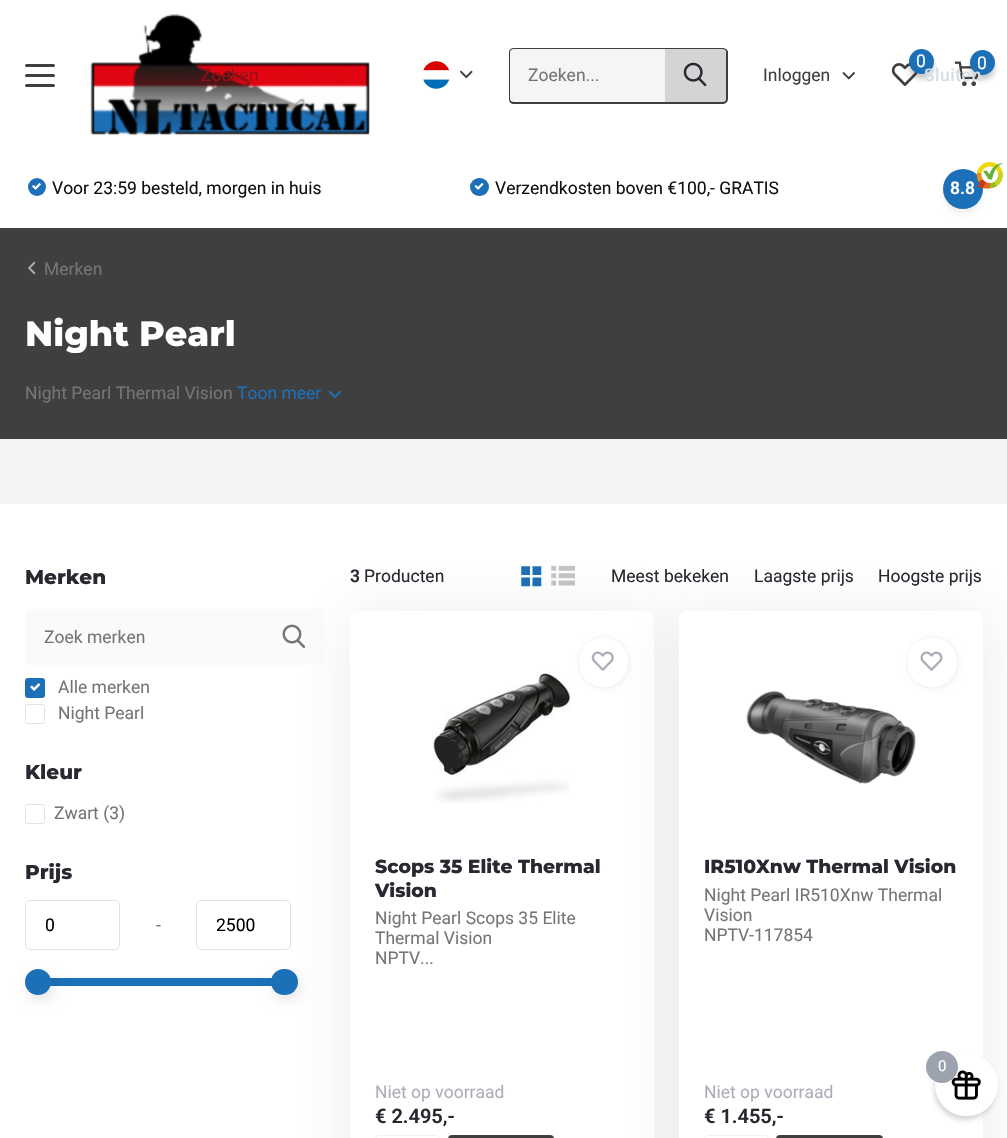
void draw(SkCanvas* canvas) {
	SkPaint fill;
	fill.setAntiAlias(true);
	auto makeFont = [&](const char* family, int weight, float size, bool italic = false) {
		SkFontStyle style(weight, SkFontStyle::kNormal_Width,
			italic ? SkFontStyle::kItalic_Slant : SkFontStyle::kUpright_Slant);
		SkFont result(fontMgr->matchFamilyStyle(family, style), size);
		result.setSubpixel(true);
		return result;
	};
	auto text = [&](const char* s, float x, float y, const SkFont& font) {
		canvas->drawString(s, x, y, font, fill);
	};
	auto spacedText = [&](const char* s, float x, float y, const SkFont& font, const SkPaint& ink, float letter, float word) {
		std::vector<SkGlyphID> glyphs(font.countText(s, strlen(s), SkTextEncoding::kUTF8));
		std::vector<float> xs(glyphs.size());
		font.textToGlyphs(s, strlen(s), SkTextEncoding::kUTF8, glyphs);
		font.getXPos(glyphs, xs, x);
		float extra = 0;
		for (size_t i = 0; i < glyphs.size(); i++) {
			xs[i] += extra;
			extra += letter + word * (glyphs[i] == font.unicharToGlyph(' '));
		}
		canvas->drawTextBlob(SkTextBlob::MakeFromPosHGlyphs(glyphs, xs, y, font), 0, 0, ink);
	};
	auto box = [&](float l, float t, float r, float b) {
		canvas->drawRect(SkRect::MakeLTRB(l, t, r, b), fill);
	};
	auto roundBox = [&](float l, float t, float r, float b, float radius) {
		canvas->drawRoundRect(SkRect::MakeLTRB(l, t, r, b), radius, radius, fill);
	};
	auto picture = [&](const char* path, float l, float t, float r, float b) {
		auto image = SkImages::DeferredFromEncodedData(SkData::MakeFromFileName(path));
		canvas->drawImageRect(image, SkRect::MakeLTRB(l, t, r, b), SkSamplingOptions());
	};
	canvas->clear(0xFFFFFFFF);
	fill.setColor(0xFF3F3F3F);
	roundBox(25, 64, 55, 67, 1.5f);
	roundBox(25, 74, 55, 77, 1.5f);
	roundBox(25, 84, 55, 87, 1.5f);
	picture("image0.png", 90, 14, 370, 136);
	picture("image1.png", 423, 61, 450, 89);
	picture("image2.png", 460, 70, 473, 79);
	fill.setColor(0xFFF5F5F5);
	canvas->drawPath(SkPathBuilder().moveTo(514, 48).lineTo(665, 48).lineTo(665, 104).lineTo(514, 104).cubicTo(511, 104, 509, 102, 509, 99).lineTo(509, 53).cubicTo(509, 50, 511, 48, 514, 48).close().detach(), fill);
	fill.setColor(0xFF3F3F3F);
	canvas->drawPath(SkPathBuilder(SkPathFillType::kEvenOdd).moveTo(514, 48).lineTo(665, 48).lineTo(665, 104).lineTo(514, 104).cubicTo(511, 104, 509, 102, 509, 99).lineTo(509, 52).cubicTo(509, 50, 511, 48, 514, 48).close().moveTo(514, 49).lineTo(665, 49).lineTo(665, 102).lineTo(514, 102).cubicTo(512, 102, 510, 101, 510, 99).lineTo(510, 52).cubicTo(510, 50, 512, 49, 514, 49).close().detach(), fill);
	fill.setColor(0xFFD4D4D4);
	canvas->drawPath(SkPathBuilder().moveTo(665, 48).lineTo(723, 48).cubicTo(726, 48, 728, 50, 728, 53).lineTo(728, 99).cubicTo(728, 102, 726, 104, 723, 104).lineTo(665, 104).close().detach(), fill);
	fill.setColor(0xFF3F3F3F);
	canvas->drawPath(SkPathBuilder(SkPathFillType::kEvenOdd).moveTo(665, 48).lineTo(722, 48).cubicTo(725, 48, 728, 50, 728, 52).lineTo(728, 99).cubicTo(728, 102, 725, 104, 722, 104).lineTo(665, 104).close().moveTo(665, 49).lineTo(722, 49).cubicTo(725, 49, 726, 50, 726, 52).lineTo(726, 99).cubicTo(726, 101, 725, 102, 722, 102).lineTo(665, 102).close().detach(), fill);
	picture("image3.png", 683, 62, 707, 87);
	picture("image4.png", 842, 72, 855, 80);
	picture("image5.png", 891, 63, 918, 86);
	fill.setColor(0x40282830);
	fill.setMaskFilter(SkMaskFilter::MakeBlur(kNormal_SkBlurStyle, 2.5f));
	canvas->drawRoundRect(SkRect::MakeLTRB(909, 54, 934, 79), 12.5f, 12.5f, fill);
	fill.setMaskFilter(nullptr);
	fill.setColor(0xFF1C70B8);
	canvas->drawCircle(921.5f, 61.5f, 12.5f, fill);
	picture("image6.png", 955, 61, 979, 86);
	fill.setColor(0x40282830);
	fill.setMaskFilter(SkMaskFilter::MakeBlur(kNormal_SkBlurStyle, 2.5f));
	canvas->drawRoundRect(SkRect::MakeLTRB(970, 55, 995, 80), 12.5f, 12.5f, fill);
	fill.setMaskFilter(nullptr);
	fill.setColor(0xFF1C70B8);
	canvas->drawCircle(982.5f, 62.5f, 12.5f, fill);
	fill.setColor(0xFF1D70B7);
	canvas->drawCircle(37, 187, 9, fill);
	picture("image7.png", 32, 183, 41, 190);
	roundBox(470, 178, 489, 196, 9);
	picture("image8.png", 474, 183, 484, 190);
	fill.setColor(0x0F000000);
	fill.setMaskFilter(SkMaskFilter::MakeBlur(kNormal_SkBlurStyle, 2.5f));
	canvas->drawRoundRect(SkRect::MakeLTRB(943, 174, 983, 214), 20, 20, fill);
	fill.setMaskFilter(nullptr);
	fill.setColor(0xFF1C70B8);
	canvas->drawCircle(963, 189, 20, fill);
	picture("image9.png", 976, 162, 1004, 189);
	fill.setColor(0xFF3F3F3F);
	box(0, 228, 1007, 439);
	picture("image10.png", 28, 261, 36, 275);
	picture("image11.png", 328, 390, 342, 399);
	fill.setColor(0xFFF4F4F4);
	box(0, 439, 1007, 504);
	picture("image14.png", 521, 566, 542, 587);
	picture("image15.png", 551, 565, 575, 586);
	fill.setColor(0x1A263F4D);
	fill.setMaskFilter(SkMaskFilter::MakeBlur(kNormal_SkBlurStyle, 31));
	canvas->drawRoundRect(SkRect::MakeLTRB(353, 614, 656, 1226), 8, 8, fill);
	fill.setMaskFilter(nullptr);
	fill.setColor(0xFFFAFAFA);
	roundBox(25, 609, 325, 665, 5);
	picture("image12.png", 282, 624, 306, 648);
	fill.setColor(0xFF1C70B8);
	canvas->drawRoundRect(SkRect::MakeLTRB(25.5f, 678.5f, 44.5f, 697.5f), 2, 2, fill);
	fill.setStyle(SkPaint::kStroke_Style);
	fill.setStrokeWidth(1);
	canvas->drawRoundRect(SkRect::MakeLTRB(25.5f, 678.5f, 44.5f, 697.5f), 2, 2, fill);
	picture("image13.png", 30, 683, 41, 691);
	fill.setColor(0xFFE2E2E2);
	canvas->drawRoundRect(SkRect::MakeLTRB(25.5f, 704.5f, 44.5f, 723.5f), 2, 2, fill);
	canvas->drawRoundRect(SkRect::MakeLTRB(25.5f, 804.5f, 44.5f, 823.5f), 2, 2, fill);
	canvas->drawRoundRect(SkRect::MakeLTRB(25.5f, 900.5f, 119.5f, 949.5f), 4.5f, 4.5f, fill);
	canvas->drawRoundRect(SkRect::MakeLTRB(196.5f, 900.5f, 290.5f, 949.5f), 4.5f, 4.5f, fill);
	fill.setStyle(SkPaint::kFill_Style);
	fill.setColor(0xFF1C70B8);
	box(50, 978, 272, 986);
	fill.setColor(0x1A000000);
	fill.setMaskFilter(SkMaskFilter::MakeBlur(kNormal_SkBlurStyle, 6));
	canvas->drawRoundRect(SkRect::MakeLTRB(28, 974, 54, 1000), 13, 13, fill);
	fill.setMaskFilter(nullptr);
	fill.setColor(0xFF1C70B8);
	canvas->drawCircle(38, 982, 13, fill);
	fill.setColor(0x1A000000);
	fill.setMaskFilter(SkMaskFilter::MakeBlur(kNormal_SkBlurStyle, 6));
	canvas->drawRoundRect(SkRect::MakeLTRB(274, 974, 300, 1000), 13, 13, fill);
	fill.setMaskFilter(nullptr);
	fill.setColor(0xFF1C70B8);
	roundBox(271, 969, 298, 995, 13);
	fill.setColor(0xFFFFFFFF);
	roundBox(350, 611, 654, 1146, 8);
	picture("image17.png", 432, 671, 571, 803);
	fill.setColor(0x0F000000);
	fill.setMaskFilter(SkMaskFilter::MakeBlur(kNormal_SkBlurStyle, 2.5f));
	canvas->drawRoundRect(SkRect::MakeLTRB(579, 638, 630, 689), 25.5f, 25.5f, fill);
	fill.setMaskFilter(nullptr);
	fill.setColor(0x1A263F4D);
	fill.setMaskFilter(SkMaskFilter::MakeBlur(kNormal_SkBlurStyle, 31));
	canvas->drawRoundRect(SkRect::MakeLTRB(681, 614, 985, 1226), 8, 8, fill);
	fill.setMaskFilter(nullptr);
	fill.setColor(0xFFFFFFFF);
	canvas->drawRoundRect(SkRect::MakeLTRB(578.5f, 636.5f, 628.5f, 687.5f), 25, 25, fill);
	fill.setStyle(SkPaint::kStroke_Style);
	fill.setColor(0xFFF6F6F6);
	canvas->drawRoundRect(SkRect::MakeLTRB(578.5f, 636.5f, 628.5f, 687.5f), 25, 25, fill);
	picture("image16.png", 591, 651, 614, 671);
	fill.setColor(0xFFF2F2F2);
	canvas->drawRoundRect(SkRect::MakeLTRB(375.5f, 1135.5f, 439.5f, 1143.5f), 4.5f, 4.5f, fill);
	fill.setStyle(SkPaint::kFill_Style);
	fill.setColor(0xFF3F3F3F);
	roundBox(448, 1135, 554, 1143, 5);
	fill.setColor(0xFFFFFFFF);
	roundBox(679, 611, 983, 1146, 8);
	picture("image19.png", 746, 690, 916, 784);
	fill.setColor(0x0F000000);
	fill.setMaskFilter(SkMaskFilter::MakeBlur(kNormal_SkBlurStyle, 2.5f));
	canvas->drawRoundRect(SkRect::MakeLTRB(908, 638, 959, 689), 25.5f, 25.5f, fill);
	fill.setMaskFilter(nullptr);
	fill.setColor(0xFFFFFFFF);
	canvas->drawCircle(932, 662, 25.5f, fill);
	fill.setStyle(SkPaint::kStroke_Style);
	fill.setColor(0xFFF6F6F6);
	canvas->drawCircle(932, 662, 25.5f, fill);
	picture("image18.png", 920, 651, 943, 671);
	fill.setColor(0xFFF2F2F2);
	canvas->drawRoundRect(SkRect::MakeLTRB(704.5f, 1135.5f, 768.5f, 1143.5f), 4.5f, 4.5f, fill);
	fill.setStyle(SkPaint::kFill_Style);
	fill.setColor(0xFF3F3F3F);
	roundBox(776, 1135, 883, 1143, 5);
	fill.setColor(0x29000000);
	fill.setMaskFilter(SkMaskFilter::MakeBlur(kNormal_SkBlurStyle, 2.5f));
	canvas->drawRoundRect(SkRect::MakeLTRB(934, 1058, 996, 1120), 31, 31, fill);
	fill.setMaskFilter(nullptr);
	fill.setColor(0xFFFFFFFF);
	roundBox(935, 1054, 998, 1116, 31);
	picture("image20.png", 951, 1070, 981, 1100);
	fill.setColor(0xFF9CA3AF);
	canvas->drawCircle(942, 1067, 16, fill);
	auto font1 = makeFont("Roboto", 400, 17.5f);
	fill.setColor(0xFF757575);
	text("Zoeken...", 528, 81, font1);
	fill.setColor(0xFF3F3F3F);
	text("Inloggen", 763, 81, font1);
	fill.setColor(0xFFFFFFFF);
	text("0", 916, 67, font1);
	text("0", 977, 69, font1);
	fill.setColor(0xFF9B0D15);
	text("Zoeken", 201, 81, font1);
	auto font2 = makeFont("Roboto", 500, 17.5f);
	fill.setColor(0xFFD6DEE5);
	spacedText("Sluiten", 924, 81, font2, fill, 0.5f, 0);
	fill.setColor(0xFF111111);
	text("Voor 23:59 besteld, morgen in huis", 52, 194, font1);
	text("Verzendkosten boven €100,- GRATIS", 495, 194, font1);
	auto font3 = makeFont("Roboto", 600, 17.5f);
	fill.setColor(0xFFFFFFFF);
	text("8.8", 950, 194, font3);
	fill.setColor(0xFF757575);
	text("Merken", 44, 275, font1);
	auto font4 = makeFont("Montserrat", 800, 35);
	fill.setColor(0xFFFFFFFF);
	text("Night Pearl", 25, 346, font4);
	fill.setColor(0xFF757575);
	text("Night Pearl Thermal Vision", 25, 399, font1);
	fill.setColor(0xFF1C70B8);
	text("Toon meer", 237, 399, font1);
	auto font5 = makeFont("Montserrat", 800, 20);
	fill.setColor(0xFF282830);
	text("Merken", 25, 584, font5);
	fill.setColor(0xFF757575);
	text("Zoek merken", 44, 643, font1);
	text("Alle merken", 58, 693, font1);
	text("Night Pearl", 58, 719, font1);
	fill.setColor(0xFF282830);
	text("Kleur", 25, 779, font5);
	fill.setColor(0xFF757575);
	text("Zwart (3)", 54, 819, font1);
	fill.setColor(0xFF282830);
	text("Prijs", 25, 879, font5);
	fill.setColor(0xFF000000);
	text("0", 45, 931, font1);
	fill.setColor(0xFF757575);
	text("-", 156, 931, font1);
	fill.setColor(0xFF000000);
	text("2500", 216, 931, font1);
	fill.setColor(0xFF282830);
	text("3", 350, 582, font3);
	text("Producten", 364, 582, font1);
	text("Meest bekeken", 611, 582, font1);
	text("Laagste prijs", 754, 582, font1);
	text("Hoogste prijs", 878, 582, font1);
	auto font6 = makeFont("Montserrat", 800, 18.75f);
	text("Scops 35 Elite Thermal", 375, 873, font6);
	text("Vision", 375, 897, font6);
	fill.setColor(0xFF757575);
	text("Night Pearl Scops 35 Elite", 375, 924, font1);
	text("Thermal Vision", 375, 944, font1);
	text("NPTV...", 375, 964, font1);
	fill.setColor(0xFFADADBA);
	text("Niet op voorraad", 375, 1098, font1);
	auto font7 = makeFont("Roboto", 600, 20);
	fill.setColor(0xFF282830);
	text("€ 2.495,-", 375, 1123, font7);
	text("IR510Xnw Thermal Vision", 704, 873, font6);
	fill.setColor(0xFF757575);
	text("Night Pearl IR510Xnw Thermal", 704, 901, font1);
	text("Vision", 704, 921, font1);
	text("NPTV-117854", 704, 941, font1);
	fill.setColor(0xFFADADBA);
	text("Niet op voorraad", 704, 1098, font1);
	fill.setColor(0xFF282830);
	text("€ 1.455,-", 704, 1123, font7);
	auto font8 = makeFont("Roboto", 400, 15);
	fill.setColor(0xFFFFFFFF);
	text("0", 938, 1071, font8);
}
